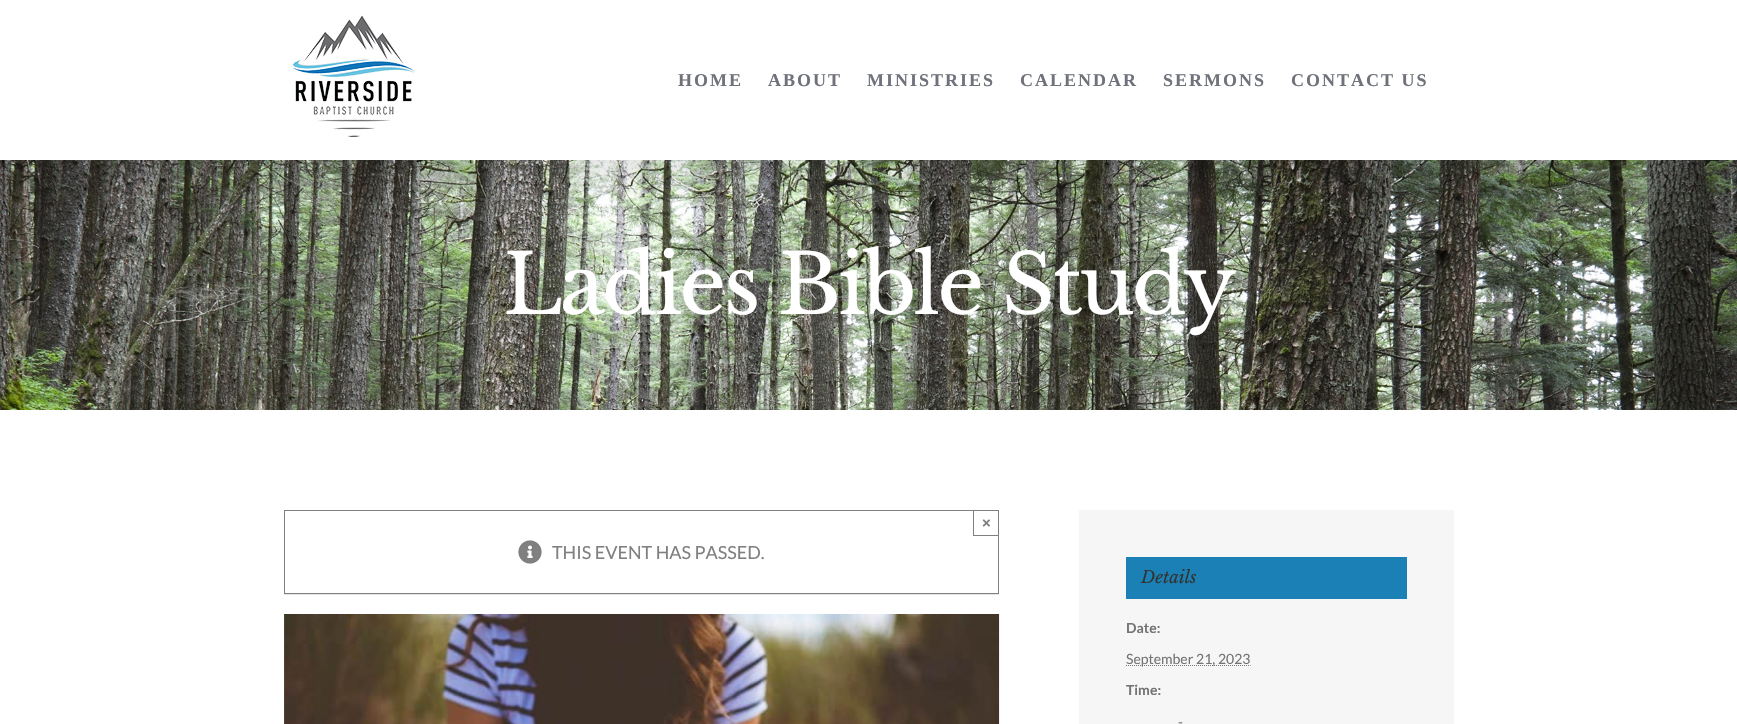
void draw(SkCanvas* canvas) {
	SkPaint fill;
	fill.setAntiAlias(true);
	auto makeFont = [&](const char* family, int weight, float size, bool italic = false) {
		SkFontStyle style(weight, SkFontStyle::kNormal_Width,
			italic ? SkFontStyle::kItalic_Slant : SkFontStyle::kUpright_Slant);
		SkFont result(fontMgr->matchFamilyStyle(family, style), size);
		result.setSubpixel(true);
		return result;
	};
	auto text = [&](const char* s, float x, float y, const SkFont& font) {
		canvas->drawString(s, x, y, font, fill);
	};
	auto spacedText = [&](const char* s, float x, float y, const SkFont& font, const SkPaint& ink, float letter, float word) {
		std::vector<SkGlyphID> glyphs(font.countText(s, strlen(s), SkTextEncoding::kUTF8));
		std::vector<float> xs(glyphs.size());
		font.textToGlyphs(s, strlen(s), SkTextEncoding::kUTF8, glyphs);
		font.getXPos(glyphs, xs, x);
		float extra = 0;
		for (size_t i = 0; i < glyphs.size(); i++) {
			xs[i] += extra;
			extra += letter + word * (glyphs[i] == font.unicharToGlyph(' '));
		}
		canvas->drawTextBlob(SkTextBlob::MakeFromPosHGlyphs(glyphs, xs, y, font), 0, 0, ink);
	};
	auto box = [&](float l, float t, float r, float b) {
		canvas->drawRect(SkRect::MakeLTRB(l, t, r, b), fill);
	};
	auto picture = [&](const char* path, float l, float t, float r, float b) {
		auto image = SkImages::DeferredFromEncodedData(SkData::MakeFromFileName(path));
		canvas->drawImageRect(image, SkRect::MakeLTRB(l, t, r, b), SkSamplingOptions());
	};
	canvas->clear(0xFFFFFFFF);
	picture("image1.png", 0, 160, 1737, 410);
	canvas->save();
	canvas->clipRect(SkRect::MakeLTRB(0, 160, 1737, 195));
	fill.setColor(0x24000000);
	fill.setMaskFilter(SkMaskFilter::MakeBlur(kNormal_SkBlurStyle, 25));
	canvas->drawRect(SkRect::MakeLTRB(2, 12, 1735, 168), fill);
	fill.setMaskFilter(nullptr);
	canvas->restore();
	picture("image0.png", 292, 15, 415, 137);
	canvas->save();
	canvas->clipRect(SkRect::MakeLTRB(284, 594, 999, 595));
	fill.setColor(0x1A000000);
	fill.setMaskFilter(SkMaskFilter::MakeBlur(kNormal_SkBlurStyle, 0.5f));
	canvas->drawRect(SkRect::MakeLTRB(284, 511, 999, 595), fill);
	fill.setMaskFilter(nullptr);
	canvas->restore();
	fill.setStyle(SkPaint::kStroke_Style);
	fill.setStrokeWidth(1);
	fill.setColor(0xFF808080);
	canvas->drawRect(SkRect::MakeLTRB(284.5f, 510.5f, 998.5f, 593.5f), fill);
	fill.setStyle(SkPaint::kFill_Style);
	box(973, 535, 999, 536);
	box(973, 510, 974, 536);
	picture("image2.png", 518, 540, 542, 564);
	picture("image3.png", 284, 614, 1000, 724);
	fill.setColor(0xFFF6F6F6);
	box(1079, 510, 1454, 724);
	fill.setColor(0xFF1A80B6);
	box(1126, 557, 1407, 599);
	fill.setStyle(SkPaint::kStroke_Style);
	fill.setColor(0xFF747474);
	fill.setPathEffect(SkDashPathEffect::Make({{1, 1}}, 0));
	canvas->drawPath(SkPathBuilder().moveTo(1126, 665.5f).lineTo(1250.5f, 665.5f).detach(), fill);
	fill.setPathEffect(nullptr);
	auto font1 = makeFont("Liberation Serif", 700, 18);
	fill.setStyle(SkPaint::kFill_Style);
	fill.setColor(0xFF6F727B);
	spacedText("HOME", 678, 86, font1, fill, 2, 0);
	spacedText("ABOUT", 768, 86, font1, fill, 2, 0);
	spacedText("MINISTRIES", 867, 86, font1, fill, 2, 0);
	spacedText("CALENDAR", 1020, 86, font1, fill, 2, 0);
	spacedText("SERMONS", 1163, 86, font1, fill, 2, 0);
	spacedText("CONTACT US", 1291, 86, font1, fill, 2, 0);
	auto font2 = makeFont("Libre Baskerville", 400, 82);
	fill.setColor(0xFFFFFFFF);
	spacedText("Ladies Bible Study", 503, 314, font2, fill, -3, 0);
	auto font3 = makeFont("Liberation Sans", 700, 15);
	fill.setColor(0xFF808080);
	text("×", 982, 528, font3);
	auto font4 = makeFont("Lato", 400, 18);
	text("THIS EVENT HAS PASSED.", 552, 559, font4);
	auto font5 = makeFont("Libre Baskerville", 400, 17, true);
	fill.setColor(0xFF333333);
	text("Details", 1141, 583, font5);
	auto font6 = makeFont("Lato", 700, 14);
	fill.setColor(0xFF747474);
	text("Date:", 1126, 633, font6);
	auto font7 = makeFont("Lato", 400, 14);
	text("September 21, 2023", 1126, 664, font7);
	text("Time:", 1126, 695, font6);
	text("-", 1178, 727, font7);
}
